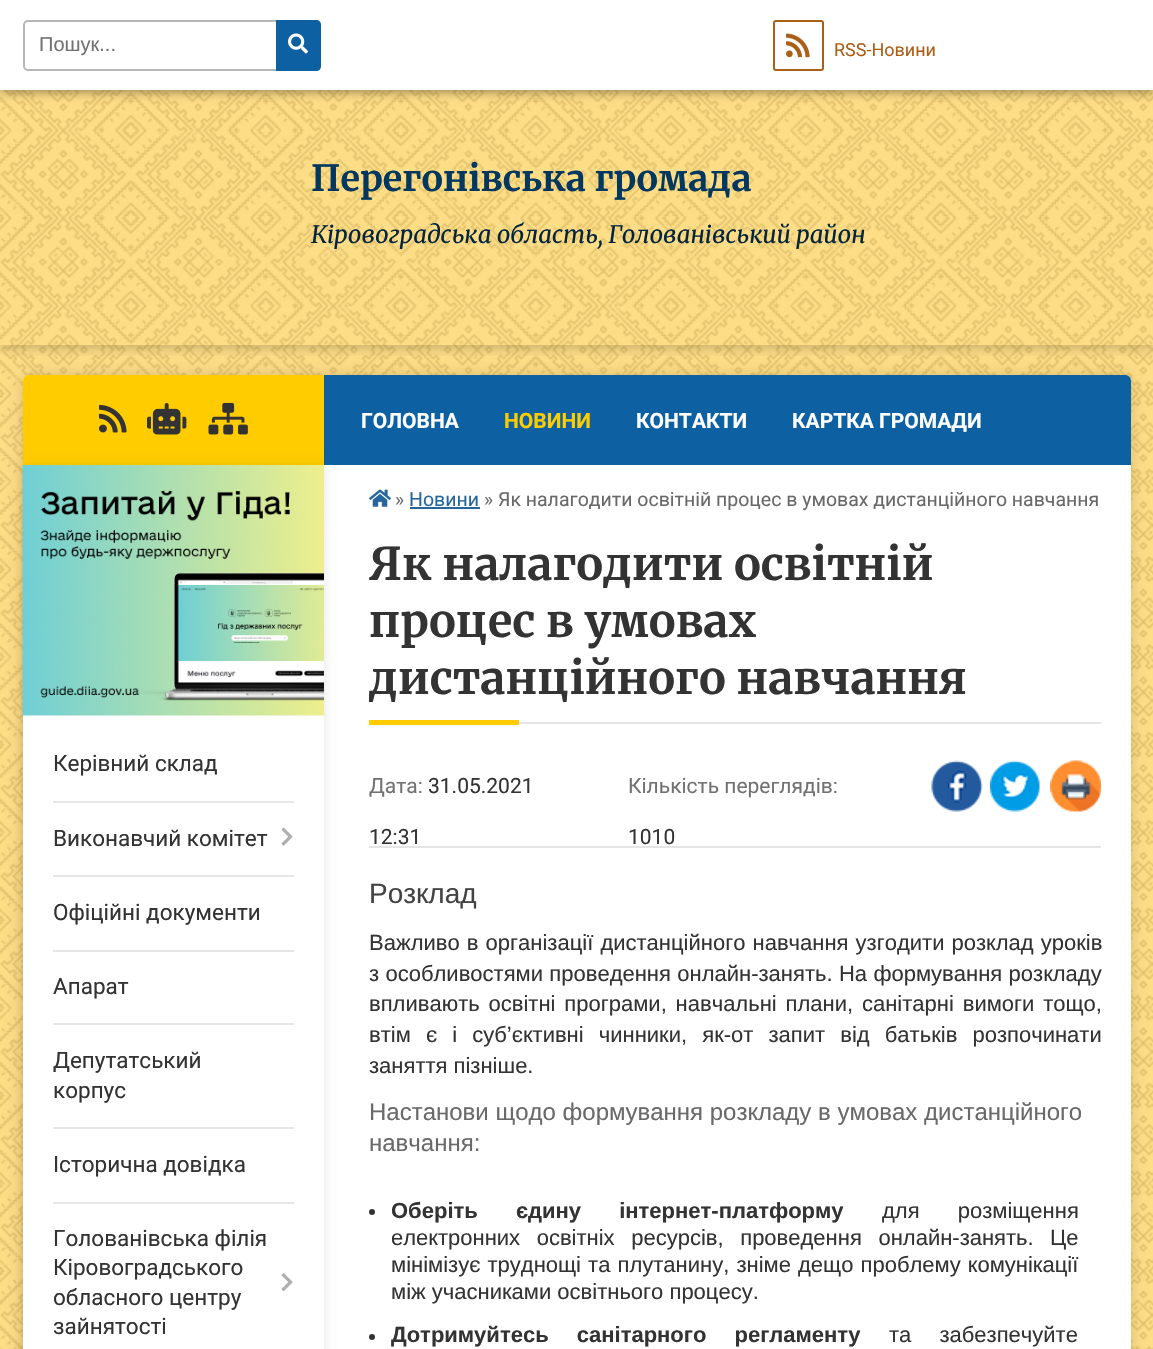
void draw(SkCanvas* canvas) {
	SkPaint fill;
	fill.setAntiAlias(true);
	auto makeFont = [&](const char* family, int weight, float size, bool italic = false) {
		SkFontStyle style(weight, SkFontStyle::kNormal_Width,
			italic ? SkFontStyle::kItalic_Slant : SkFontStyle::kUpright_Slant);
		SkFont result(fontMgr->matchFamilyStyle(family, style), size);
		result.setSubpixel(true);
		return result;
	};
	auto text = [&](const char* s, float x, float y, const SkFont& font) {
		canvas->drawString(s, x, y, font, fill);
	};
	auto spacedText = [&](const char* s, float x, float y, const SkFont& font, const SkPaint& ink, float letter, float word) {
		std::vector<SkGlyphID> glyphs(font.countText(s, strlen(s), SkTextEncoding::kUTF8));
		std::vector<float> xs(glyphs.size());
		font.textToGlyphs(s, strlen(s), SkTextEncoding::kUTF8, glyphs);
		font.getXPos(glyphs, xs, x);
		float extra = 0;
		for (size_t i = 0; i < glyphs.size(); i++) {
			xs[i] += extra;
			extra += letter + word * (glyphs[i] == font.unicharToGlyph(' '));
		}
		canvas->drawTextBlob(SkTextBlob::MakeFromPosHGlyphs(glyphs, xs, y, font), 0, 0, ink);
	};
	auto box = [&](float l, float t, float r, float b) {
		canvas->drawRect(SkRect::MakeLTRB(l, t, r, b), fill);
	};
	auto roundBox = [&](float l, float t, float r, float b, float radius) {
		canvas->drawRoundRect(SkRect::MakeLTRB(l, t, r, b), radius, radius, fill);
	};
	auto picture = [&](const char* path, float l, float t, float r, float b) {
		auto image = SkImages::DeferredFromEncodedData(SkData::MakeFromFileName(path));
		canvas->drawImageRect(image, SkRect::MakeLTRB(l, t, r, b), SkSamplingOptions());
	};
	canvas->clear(0xFFFFDA75);
	picture("image0.png", 0, 90, 1153, 1349);
	fill.setColor(0x66000000);
	fill.setMaskFilter(SkMaskFilter::MakeBlur(kNormal_SkBlurStyle, 5));
	canvas->drawRect(SkRect::MakeLTRB(0, 2, 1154, 92), fill);
	fill.setMaskFilter(nullptr);
	canvas->save();
	canvas->clipRect(SkRect::MakeLTRB(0, 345, 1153, 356));
	fill.setColor(0x4D000000);
	fill.setMaskFilter(SkMaskFilter::MakeBlur(kNormal_SkBlurStyle, 7.5f));
	canvas->drawRect(SkRect::MakeLTRB(0, 90, 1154, 345), fill);
	fill.setMaskFilter(nullptr);
	canvas->restore();
	fill.setColor(0xFFFFFFFF);
	box(0, 0, 1153, 90);
	fill.setStyle(SkPaint::kStroke_Style);
	fill.setStrokeWidth(2);
	fill.setColor(0xFFB7B7B7);
	canvas->drawRoundRect(SkRect::MakeLTRB(24, 21, 320, 70), 4, 4, fill);
	fill.setStyle(SkPaint::kFill_Style);
	fill.setColor(0xFF0D61A2);
	canvas->drawPath(SkPathBuilder().moveTo(276, 20).lineTo(316, 20).cubicTo(319, 20, 321, 22, 321, 25).lineTo(321, 66).cubicTo(321, 69, 319, 71, 316, 71).lineTo(276, 71).close().detach(), fill);
	picture("image1.png", 288, 33, 308, 54);
	fill.setStyle(SkPaint::kStroke_Style);
	fill.setColor(0xFFAB5F17);
	canvas->drawRoundRect(SkRect::MakeLTRB(774, 21, 823, 70), 2, 2, fill);
	picture("image2.png", 786, 33, 810, 58);
	fill.setStyle(SkPaint::kFill_Style);
	fill.setColor(0x26000000);
	fill.setMaskFilter(SkMaskFilter::MakeBlur(kNormal_SkBlurStyle, 7.5f));
	canvas->drawRoundRect(SkRect::MakeLTRB(23, 375, 1131, 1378), 6, 6, fill);
	fill.setMaskFilter(nullptr);
	fill.setColor(0xFFFFFFFF);
	roundBox(23, 375, 1131, 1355, 6);
	fill.setColor(0xFFFFCC00);
	canvas->drawPath(SkPathBuilder().moveTo(29, 375).lineTo(324, 375).lineTo(324, 465).lineTo(23, 465).lineTo(23, 381).cubicTo(23, 377.5f, 25.5f, 375, 29, 375).close().detach(), fill);
	picture("image3.png", 99, 404, 127, 433);
	picture("image4.png", 147, 403, 187, 435);
	picture("image5.png", 208, 402, 248, 435);
	fill.setColor(0xFF0D61A2);
	canvas->drawPath(SkPathBuilder().moveTo(324, 375).lineTo(1125, 375).cubicTo(1128.5f, 375, 1131, 377.5f, 1131, 381).lineTo(1131, 465).lineTo(324, 465).close().detach(), fill);
	canvas->save();
	canvas->clipPath(SkPathBuilder(SkPathFillType::kEvenOdd).moveTo(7, 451).lineTo(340, 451).lineTo(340, 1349).lineTo(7, 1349).close().moveTo(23, 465).lineTo(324, 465).lineTo(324, 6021).lineTo(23, 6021).close().detach(), true);
	fill.setColor(0x1A000000);
	fill.setMaskFilter(SkMaskFilter::MakeBlur(kNormal_SkBlurStyle, 5));
	canvas->drawRect(SkRect::MakeLTRB(23, 467, 324, 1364), fill);
	fill.setMaskFilter(nullptr);
	canvas->restore();
	picture("image6.png", 22, 465, 324, 716);
	fill.setColor(0xFFE6E6E6);
	box(53, 801, 294, 803);
	box(53, 875, 294, 877);
	picture("image7.png", 281, 827, 293, 846);
	box(53, 950, 294, 952);
	box(53, 1023, 294, 1025);
	box(53, 1127, 294, 1129);
	box(53, 1202, 294, 1204);
	picture("image8.png", 281, 1273, 293, 1291);
	picture("image9.png", 369, 489, 391, 507);
	fill.setColor(0xFF25669C);
	box(410, 507, 480, 509);
	fill.setColor(0xFFE5E5E5);
	box(519, 722, 1101, 724);
	fill.setColor(0xFFFFCC00);
	box(369, 720, 519, 725);
	picture("image10.png", 931, 760, 983, 812);
	picture("image11.png", 990, 760, 1040, 812);
	picture("image12.png", 1050, 760, 1101, 812);
	fill.setColor(0xFFE5E5E5);
	box(369, 846, 1101, 848);
	fill.setColor(0xFF333333);
	canvas->drawCircle(372, 1212, 3, fill);
	canvas->drawCircle(372, 1337, 3, fill);
	auto font1 = makeFont("Liberation Sans", 400, 20);
	fill.setColor(0xFF727272);
	text("Пошук...", 39, 51, font1);
	auto font2 = makeFont("Roboto", 400, 18);
	fill.setColor(0xFFAB5F17);
	text("RSS-Новини", 834, 56, font2);
	auto font3 = makeFont("Merriweather", 300, 36);
	fill.setColor(0xFF02375F);
	text("Перегонівська громада", 311, 191, font3);
	auto font4 = makeFont("Merriweather", 300, 24, true);
	fill.setColor(0xFF05253E);
	text("Кіровоградська область, Голованівський район", 311, 243, font4);
	auto font5 = makeFont("Roboto", 400, 22.5f);
	fill.setColor(0xFF333333);
	text("Керівний склад", 53, 771, font5);
	text("Виконавчий комітет", 53, 846, font5);
	text("Офіційні документи", 53, 920, font5);
	text("Апарат", 53, 994, font5);
	text("Депутатський", 53, 1068, font5);
	text("корпус", 53, 1098, font5);
	text("Історична довідка", 53, 1172, font5);
	text("Голованівська філія", 53, 1246, font5);
	text("Кіровоградського", 53, 1275, font5);
	text("обласного центру", 53, 1305, font5);
	text("зайнятості", 53, 1334, font5);
	auto font6 = makeFont("Roboto", 700, 21);
	fill.setColor(0xFFFFFFFF);
	text("ГОЛОВНА", 361, 428, font6);
	fill.setColor(0xFFFFCC00);
	text("НОВИНИ", 504, 428, font6);
	fill.setColor(0xFFFFFFFF);
	text("КОНТАКТИ", 636, 428, font6);
	text("КАРТКА ГРОМАДИ", 792, 428, font6);
	auto font7 = makeFont("Roboto", 400, 19.5f);
	fill.setColor(0xFF696969);
	text("»", 395, 506, font7);
	fill.setColor(0xFF25669C);
	text("Новини", 409, 506, font7);
	fill.setColor(0xFF696969);
	text("» Як налагодити освітній процес в умовах дистанційного навчання", 484, 506, font7);
	auto font8 = makeFont("Merriweather", 300, 45);
	fill.setColor(0xFF333333);
	text("Як налагодити освітній", 369, 580, font8);
	text("процес в умовах", 369, 637, font8);
	text("дистанційного навчання", 369, 694, font8);
	auto font9 = makeFont("Roboto", 400, 21);
	fill.setColor(0xFF727272);
	text("Дата:", 369, 793, font9);
	fill.setColor(0xFF333333);
	text("31.05.2021", 428, 793, font9);
	text("12:31", 369, 844, font9);
	fill.setColor(0xFF727272);
	text("Кількість переглядів:", 628, 793, font9);
	fill.setColor(0xFF333333);
	text("1010", 628, 844, font9);
	auto font10 = makeFont("Liberation Sans", 400, 28);
	fill.setColor(0xFF434343);
	text("Розклад", 369, 903, font10);
	auto font11 = makeFont("Liberation Sans", 400, 22);
	fill.setColor(0xFF333333);
	spacedText("Важливо в організації дистанційного навчання узгодити розклад уроків", 369, 950, font11, fill, 0, 1);
	spacedText("з особливостями проведення онлайн-занять. На формування розкладу", 369, 981, font11, fill, 0, 0.25f);
	spacedText("впливають освітні програми, навчальні плани, санітарні вимоги тощо,", 369, 1011, font11, fill, 0, 2.75f);
	spacedText("втім є і суб’єктивні чинники, як-от запит від батьків розпочинати", 369, 1042, font11, fill, 0, 9);
	text("заняття пізніше.", 369, 1073, font11);
	auto font12 = makeFont("Liberation Sans", 400, 24);
	fill.setColor(0xFF696969);
	text("Настанови щодо формування розкладу в умовах дистанційного", 369, 1120, font12);
	text("навчання:", 369, 1151, font12);
	auto font13 = makeFont("Liberation Sans", 700, 22);
	fill.setColor(0xFF333333);
	spacedText("Оберіть єдину інтернет-платформу", 391, 1218, font13, fill, 0, 32);
	spacedText("для розміщення", 882, 1218, font11, fill, 0, 32);
	spacedText("електронних освітніх ресурсів, проведення онлайн-занять.", 391, 1245, font11, fill, 0, 10.5f);
	text("Це", 1050, 1245, font11);
	spacedText("мінімізує труднощі та плутанину, зніме дещо проблему комунікації", 391, 1272, font11, fill, 0, 1);
	text("між учасниками освітнього процесу.", 391, 1299, font11);
	spacedText("Дотримуйтесь санітарного регламенту", 391, 1342, font13, fill, 0, 22);
	spacedText("та забезпечуйте", 889, 1342, font11, fill, 0, 22);
}
